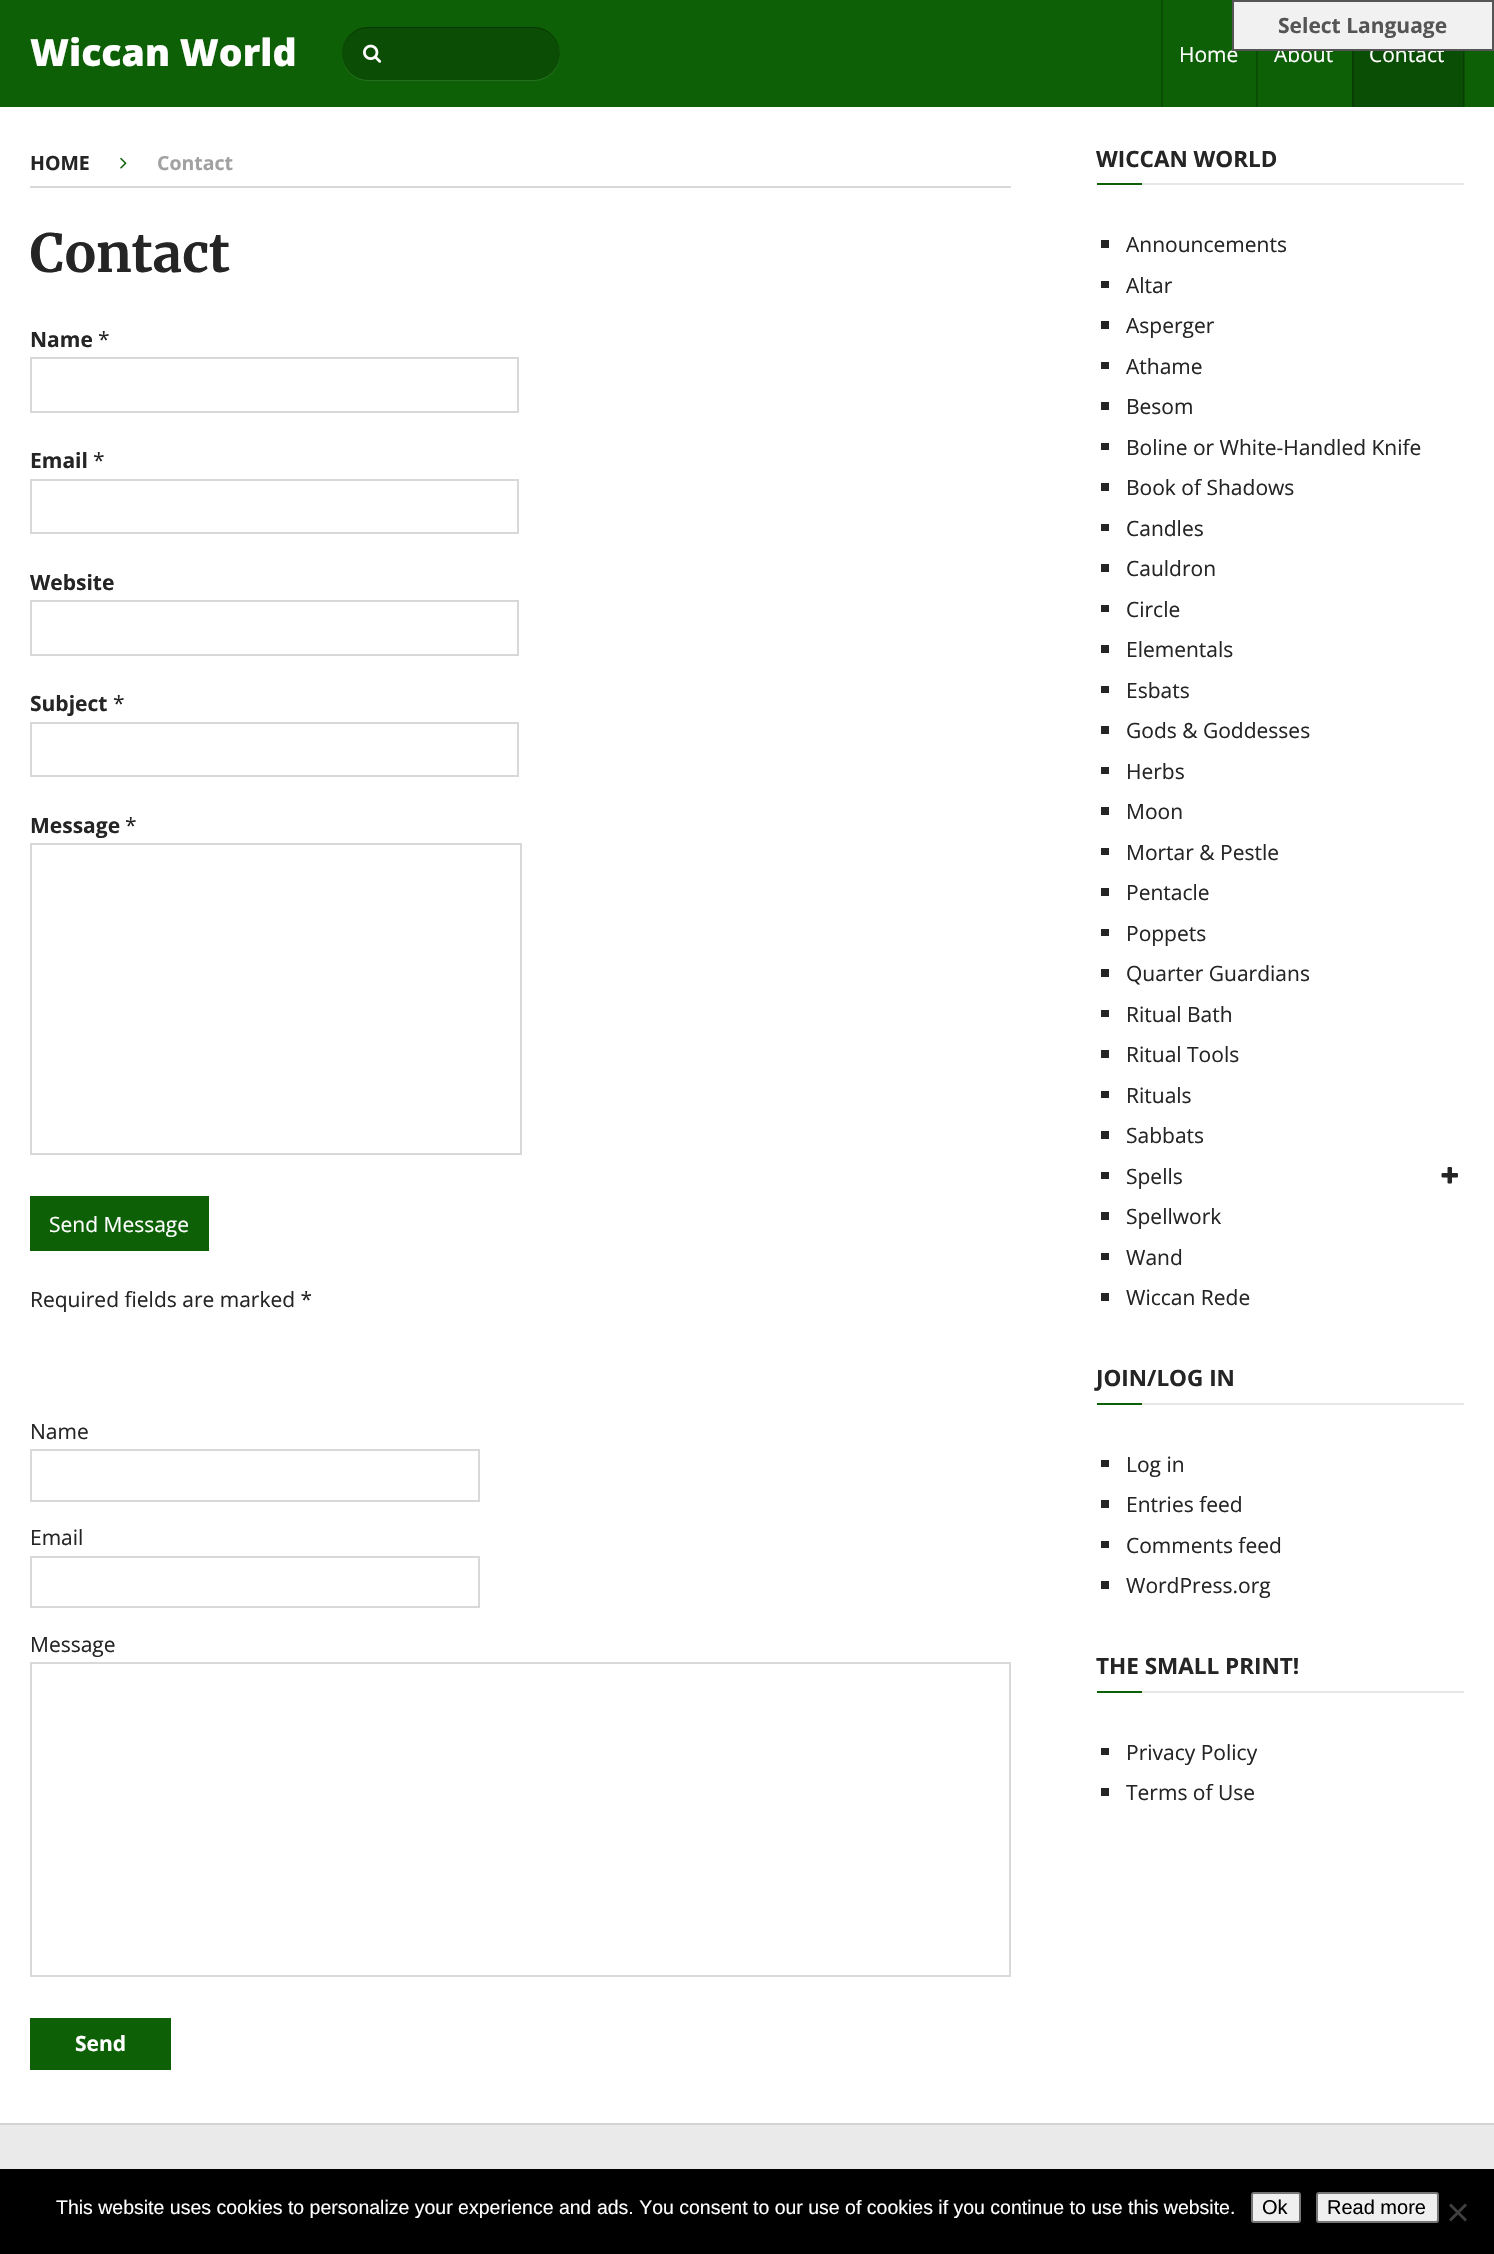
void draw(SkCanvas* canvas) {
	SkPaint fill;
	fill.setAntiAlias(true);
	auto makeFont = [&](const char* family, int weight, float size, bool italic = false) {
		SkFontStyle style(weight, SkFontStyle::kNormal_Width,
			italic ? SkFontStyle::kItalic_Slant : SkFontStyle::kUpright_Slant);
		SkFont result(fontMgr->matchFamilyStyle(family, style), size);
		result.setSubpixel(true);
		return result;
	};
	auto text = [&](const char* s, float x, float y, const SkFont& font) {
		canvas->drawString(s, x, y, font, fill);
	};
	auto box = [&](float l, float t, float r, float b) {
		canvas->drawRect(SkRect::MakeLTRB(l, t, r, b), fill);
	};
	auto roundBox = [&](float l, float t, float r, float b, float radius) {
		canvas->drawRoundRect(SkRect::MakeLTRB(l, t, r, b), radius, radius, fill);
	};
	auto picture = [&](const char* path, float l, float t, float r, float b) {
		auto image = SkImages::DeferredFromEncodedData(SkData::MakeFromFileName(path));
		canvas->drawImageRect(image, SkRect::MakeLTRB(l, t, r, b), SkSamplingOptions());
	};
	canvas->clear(0xFFFFFFFF);
	fill.setColor(0xFF0D6005);
	box(0, 0, 1494, 107);
	fill.setColor(0xFF0A4D04);
	box(1464, 51, 1465, 107);
	fill.setColor(0xFF25701E);
	canvas->drawPath(SkPathBuilder().moveTo(342, 54).lineTo(342, 55).cubicTo(342, 69, 354, 81, 368, 81).lineTo(534, 81).cubicTo(548, 81, 560, 69, 560, 55).cubicTo(560, 52, 560, 50, 559, 47).lineTo(560, 53).cubicTo(560, 68, 548, 80, 533, 80).lineTo(368, 80).cubicTo(354, 80, 342, 68, 342, 54).close().detach(), fill);
	fill.setColor(0x33000000);
	roundBox(342, 27, 560, 80, 26.5f);
	fill.setColor(0x4D000000);
	canvas->drawPath(SkPathBuilder().moveTo(368, 28).lineTo(533, 28).cubicTo(548, 28, 560, 40, 560, 54).cubicTo(560, 39, 548, 27, 534, 27).lineTo(368, 27).cubicTo(354, 27, 342, 39, 342, 54).cubicTo(342, 40, 354, 28, 368, 28).close().detach(), fill);
	picture("image0.png", 363, 44, 382, 63);
	fill.setColor(0xFF0A4D04);
	box(1161, 0, 1163, 107);
	box(1256, 51, 1258, 107);
	box(1354, 51, 1463, 107);
	fill.setColor(0xFF083E03);
	box(1463, 51, 1464, 107);
	box(1352, 51, 1354, 107);
	fill.setColor(0xFFD9D9D9);
	box(30, 186, 1011, 188);
	picture("image1.png", 120, 157, 127, 169);
	fill.setStyle(SkPaint::kStroke_Style);
	fill.setStrokeWidth(2);
	fill.setColor(0xFFD8D8D8);
	canvas->drawRect(SkRect::MakeLTRB(31, 358, 518, 412), fill);
	canvas->drawRect(SkRect::MakeLTRB(31, 480, 518, 533), fill);
	canvas->drawRect(SkRect::MakeLTRB(31, 601, 518, 655), fill);
	canvas->drawRect(SkRect::MakeLTRB(31, 723, 518, 776), fill);
	canvas->drawRect(SkRect::MakeLTRB(31, 844, 521, 1154), fill);
	fill.setStyle(SkPaint::kFill_Style);
	fill.setColor(0xFF0D6005);
	box(30, 1196, 209, 1251);
	fill.setStyle(SkPaint::kStroke_Style);
	fill.setColor(0xFFD9D9D9);
	canvas->drawRect(SkRect::MakeLTRB(31, 1450, 479, 1501), fill);
	canvas->drawRect(SkRect::MakeLTRB(31, 1557, 479, 1607), fill);
	canvas->drawRect(SkRect::MakeLTRB(31, 1663, 1010, 1976), fill);
	fill.setStyle(SkPaint::kFill_Style);
	fill.setColor(0xFF0D6005);
	box(30, 2018, 171, 2070);
	fill.setColor(0xFFE6E6E6);
	box(1142, 183, 1464, 185);
	fill.setColor(0xFF0D6005);
	box(1097, 183, 1142, 185);
	fill.setColor(0xFF252525);
	box(1101, 240, 1109, 248);
	box(1101, 281, 1109, 288);
	box(1101, 321, 1109, 329);
	box(1101, 362, 1109, 369);
	box(1101, 402, 1109, 410);
	box(1101, 443, 1109, 450);
	box(1101, 483, 1109, 491);
	box(1101, 524, 1109, 531);
	box(1101, 564, 1109, 572);
	box(1101, 605, 1109, 612);
	box(1101, 645, 1109, 653);
	box(1101, 686, 1109, 693);
	box(1101, 726, 1109, 734);
	box(1101, 767, 1109, 774);
	box(1101, 807, 1109, 815);
	box(1101, 848, 1109, 855);
	box(1101, 888, 1109, 896);
	box(1101, 929, 1109, 936);
	box(1101, 969, 1109, 977);
	box(1101, 1010, 1109, 1017);
	box(1101, 1050, 1109, 1058);
	box(1101, 1091, 1109, 1098);
	box(1101, 1131, 1109, 1139);
	box(1101, 1172, 1109, 1179);
	picture("image2.png", 1441, 1167, 1458, 1184);
	box(1101, 1212, 1109, 1220);
	box(1101, 1253, 1109, 1260);
	box(1101, 1293, 1109, 1301);
	fill.setColor(0xFFE6E6E6);
	box(1142, 1403, 1464, 1405);
	fill.setColor(0xFF0D6005);
	box(1097, 1403, 1142, 1405);
	fill.setColor(0xFF252525);
	box(1101, 1460, 1109, 1467);
	box(1101, 1500, 1109, 1508);
	box(1101, 1541, 1109, 1548);
	box(1101, 1581, 1109, 1589);
	fill.setColor(0xFFE6E6E6);
	box(1142, 1691, 1464, 1693);
	fill.setColor(0xFF0D6005);
	box(1097, 1691, 1142, 1693);
	fill.setColor(0xFF252525);
	box(1101, 1748, 1109, 1755);
	box(1101, 1788, 1109, 1796);
	fill.setColor(0xFFEAEAEA);
	box(0, 2125, 1494, 2169);
	fill.setColor(0xFFD3D3D3);
	box(0, 2123, 1494, 2125);
	fill.setColor(0xFF000000);
	box(0, 2169, 1494, 2254);
	fill.setColor(0xFFEFEFEF);
	canvas->drawRoundRect(SkRect::MakeLTRB(1252, 2193, 1300, 2222), 2, 2, fill);
	fill.setStyle(SkPaint::kStroke_Style);
	fill.setColor(0xFF767676);
	canvas->drawRoundRect(SkRect::MakeLTRB(1252, 2193, 1300, 2222), 2, 2, fill);
	fill.setStyle(SkPaint::kFill_Style);
	fill.setColor(0xFFEFEFEF);
	canvas->drawRoundRect(SkRect::MakeLTRB(1317, 2193, 1438, 2222), 2, 2, fill);
	fill.setStyle(SkPaint::kStroke_Style);
	fill.setColor(0xFF767676);
	canvas->drawRoundRect(SkRect::MakeLTRB(1317, 2193, 1438, 2222), 2, 2, fill);
	fill.setStyle(SkPaint::kFill_Style);
	fill.setColor(0xFF404040);
	canvas->drawPath(SkPathBuilder().moveTo(1465, 2203.5f).lineTo(1467, 2205.5f).lineTo(1451, 2221.5f).lineTo(1449, 2219.5f).close().detach(), fill);
	canvas->drawPath(SkPathBuilder().moveTo(1449, 2205.5f).lineTo(1451, 2203.5f).lineTo(1467, 2219.5f).lineTo(1465, 2221.5f).close().detach(), fill);
	auto font1 = makeFont("Open Sans", 800, 37.5f);
	fill.setColor(0xFFFFFFFF);
	text("Wiccan World", 30, 66, font1);
	auto font2 = makeFont("Open Sans", 400, 21);
	text("Home", 1179, 62, font2);
	text("About", 1274, 62, font2);
	text("Contact", 1369, 62, font2);
	fill.setColor(0xFFF1F1F1);
	canvas->drawRect(SkRect::MakeLTRB(1233, 1, 1493, 50), fill);
	fill.setStyle(SkPaint::kStroke_Style);
	fill.setColor(0xFF555555);
	canvas->drawRect(SkRect::MakeLTRB(1233, 1, 1493, 50), fill);
	auto font3 = makeFont("Open Sans", 700, 21);
	fill.setStyle(SkPaint::kFill_Style);
	text("Select Language", 1278, 33, font3);
	auto font4 = makeFont("Open Sans", 700, 19.5f);
	fill.setColor(0xFF252525);
	text("HOME", 30, 170, font4);
	fill.setColor(0xFFA1A1A1);
	text("Contact", 157, 170, font4);
	auto font5 = makeFont("Merriweather", 300, 52.5f);
	fill.setColor(0xFF252525);
	text("Contact", 30, 272, font5);
	text("Name", 30, 347, font3);
	text("*", 98, 347, font2);
	text("Email", 30, 468, font3);
	text("*", 93, 468, font2);
	text("Website", 30, 590, font3);
	text("Subject", 30, 711, font3);
	text("*", 113, 711, font2);
	text("Message", 30, 833, font3);
	text("*", 125, 833, font2);
	fill.setColor(0xFFFFFFFF);
	text("Send Message", 49, 1232, font2);
	fill.setColor(0xFF252525);
	text("Required fields are marked *", 30, 1307, font2);
	text("Name", 30, 1439, font2);
	text("Email", 30, 1545, font2);
	text("Message", 30, 1652, font2);
	fill.setColor(0xFFFFFFFF);
	text("Send", 75, 2051, font3);
	auto font6 = makeFont("Open Sans", 700, 22.5f);
	fill.setColor(0xFF252525);
	text("WICCAN WORLD", 1096, 167, font6);
	text("Announcements", 1126, 252, font2);
	text("Altar", 1126, 293, font2);
	text("Asperger", 1126, 333, font2);
	text("Athame", 1126, 374, font2);
	text("Besom", 1126, 414, font2);
	text("Boline or White-Handled Knife", 1126, 455, font2);
	text("Book of Shadows", 1126, 495, font2);
	text("Candles", 1126, 536, font2);
	text("Cauldron", 1126, 576, font2);
	text("Circle", 1126, 617, font2);
	text("Elementals", 1126, 657, font2);
	text("Esbats", 1126, 698, font2);
	text("Gods & Goddesses", 1126, 738, font2);
	text("Herbs", 1126, 779, font2);
	text("Moon", 1126, 819, font2);
	text("Mortar & Pestle", 1126, 860, font2);
	text("Pentacle", 1126, 900, font2);
	text("Poppets", 1126, 941, font2);
	text("Quarter Guardians", 1126, 981, font2);
	text("Ritual Bath", 1126, 1022, font2);
	text("Ritual Tools", 1126, 1062, font2);
	text("Rituals", 1126, 1103, font2);
	text("Sabbats", 1126, 1143, font2);
	text("Spells", 1126, 1184, font2);
	text("Spellwork", 1126, 1224, font2);
	text("Wand", 1126, 1265, font2);
	text("Wiccan Rede", 1126, 1305, font2);
	text("JOIN/LOG IN", 1096, 1386, font6);
	text("Log in", 1126, 1472, font2);
	text("Entries feed", 1126, 1512, font2);
	text("Comments feed", 1126, 1553, font2);
	text("WordPress.org", 1126, 1593, font2);
	text("THE SMALL PRINT!", 1096, 1674, font6);
	text("Privacy Policy", 1126, 1760, font2);
	text("Terms of Use", 1126, 1800, font2);
	auto font7 = makeFont("Liberation Sans", 400, 19.5f);
	fill.setColor(0xFFFFFFFF);
	text("This website uses cookies to personalize your experience and ads. You consent to our use of cookies if you continue to use this website.", 56, 2214, font7);
	auto font8 = makeFont("Liberation Sans", 400, 20);
	fill.setColor(0xFF000000);
	text("Ok", 1262, 2214, font8);
	text("Read more", 1327, 2214, font8);
}
